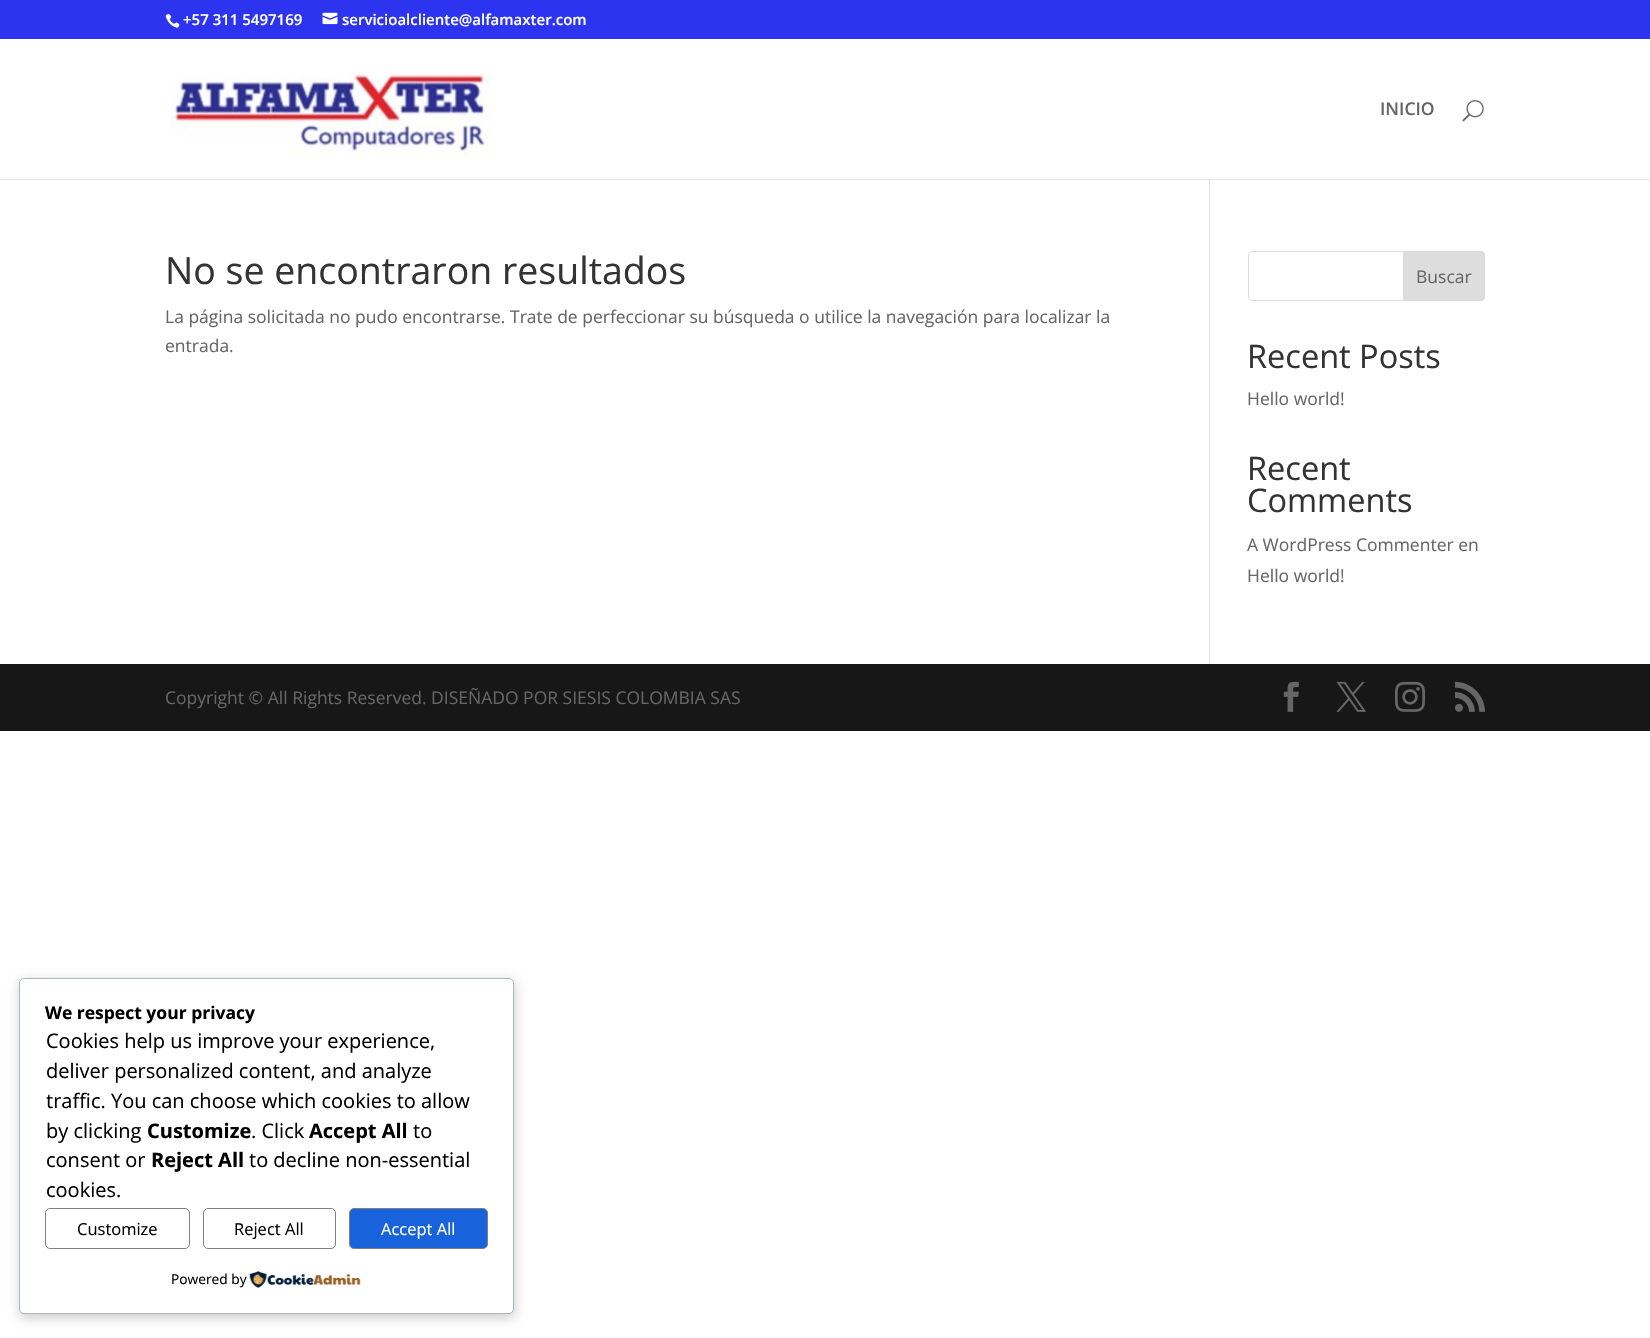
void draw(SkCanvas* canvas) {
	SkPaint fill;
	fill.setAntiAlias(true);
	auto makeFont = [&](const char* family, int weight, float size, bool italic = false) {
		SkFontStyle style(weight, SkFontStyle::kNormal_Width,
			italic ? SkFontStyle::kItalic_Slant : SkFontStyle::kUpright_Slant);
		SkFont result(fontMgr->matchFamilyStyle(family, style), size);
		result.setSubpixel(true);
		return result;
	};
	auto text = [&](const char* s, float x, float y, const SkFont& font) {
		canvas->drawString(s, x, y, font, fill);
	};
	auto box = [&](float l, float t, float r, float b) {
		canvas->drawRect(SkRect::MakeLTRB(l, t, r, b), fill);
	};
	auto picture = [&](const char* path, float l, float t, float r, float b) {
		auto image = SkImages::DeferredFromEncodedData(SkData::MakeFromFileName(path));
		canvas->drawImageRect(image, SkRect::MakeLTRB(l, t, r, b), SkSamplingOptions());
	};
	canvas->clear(0xFFFFFFFF);
	fill.setColor(0xFFE6E6E6);
	box(0, 179, 1650, 180);
	fill.setColor(0xFF2D34EF);
	box(0, 0, 1650, 39);
	picture("image0.png", 165, 14, 180, 28);
	picture("image1.png", 322, 12, 338, 25);
	picture("image2.png", 170, 70, 491, 158);
	picture("image3.png", 1462, 100, 1484, 122);
	fill.setColor(0xFFE2E2E2);
	box(1209, 179, 1210, 664);
	fill.setColor(0xFFCBCBCB);
	box(1209, 179, 1210, 180);
	fill.setStyle(SkPaint::kStroke_Style);
	fill.setStrokeWidth(1);
	fill.setColor(0xFFDDDDDD);
	canvas->drawRoundRect(SkRect::MakeLTRB(1248.5f, 251.5f, 1484.5f, 300.5f), 3.5f, 3.5f, fill);
	fill.setStyle(SkPaint::kFill_Style);
	canvas->drawPath(SkPathBuilder().moveTo(1403.5f, 251.5f).lineTo(1481, 251.5f).cubicTo(1483, 251.5f, 1484.5f, 253, 1484.5f, 255).lineTo(1484.5f, 297).cubicTo(1484.5f, 299, 1483, 300.5f, 1481, 300.5f).lineTo(1403.5f, 300.5f).close().detach(), fill);
	fill.setStyle(SkPaint::kStroke_Style);
	canvas->drawPath(SkPathBuilder().moveTo(1403.5f, 251.5f).lineTo(1481, 251.5f).cubicTo(1483, 251.5f, 1484.5f, 253, 1484.5f, 255).lineTo(1484.5f, 297).cubicTo(1484.5f, 299, 1483, 300.5f, 1481, 300.5f).lineTo(1403.5f, 300.5f).close().detach(), fill);
	fill.setStyle(SkPaint::kFill_Style);
	fill.setColor(0xFF171717);
	box(0, 664, 1650, 731);
	picture("image4.png", 1283, 681, 1299, 712);
	picture("image5.png", 1336, 681, 1366, 712);
	picture("image6.png", 1395, 681, 1425, 712);
	picture("image7.png", 1455, 681, 1485, 712);
	fill.setColor(0x33000000);
	fill.setMaskFilter(SkMaskFilter::MakeBlur(kNormal_SkBlurStyle, 6));
	canvas->drawRoundRect(SkRect::MakeLTRB(20, 981, 515, 1318), 5, 5, fill);
	fill.setMaskFilter(nullptr);
	fill.setColor(0xFFFFFFFF);
	canvas->drawRoundRect(SkRect::MakeLTRB(19.5f, 978.5f, 513.5f, 1313.5f), 4.5f, 4.5f, fill);
	fill.setStyle(SkPaint::kStroke_Style);
	fill.setColor(0xFFABB8C3);
	canvas->drawRoundRect(SkRect::MakeLTRB(19.5f, 978.5f, 513.5f, 1313.5f), 4.5f, 4.5f, fill);
	fill.setColor(0xFF808080);
	canvas->drawRoundRect(SkRect::MakeLTRB(45.5f, 1208.5f, 189.5f, 1248.5f), 4.5f, 4.5f, fill);
	canvas->drawRoundRect(SkRect::MakeLTRB(203.5f, 1208.5f, 335.5f, 1248.5f), 4.5f, 4.5f, fill);
	fill.setStyle(SkPaint::kFill_Style);
	fill.setColor(0xFF1863DC);
	canvas->drawRoundRect(SkRect::MakeLTRB(349.5f, 1208.5f, 487.5f, 1248.5f), 4.5f, 4.5f, fill);
	fill.setStyle(SkPaint::kStroke_Style);
	fill.setColor(0xFF808080);
	canvas->drawRoundRect(SkRect::MakeLTRB(349.5f, 1208.5f, 487.5f, 1248.5f), 4.5f, 4.5f, fill);
	picture("image8.png", 249, 1271, 361, 1288);
	auto font1 = makeFont("Open Sans", 600, 15);
	fill.setStyle(SkPaint::kFill_Style);
	fill.setColor(0xFFFFFFFF);
	text("+57 311 5497169", 183, 25, font1);
	text("servicioalcliente@alfamaxter.com", 342, 25, font1);
	auto font2 = makeFont("Open Sans", 600, 17.5f);
	fill.setColor(0xFF666666);
	text("INICIO", 1380, 115, font2);
	auto font3 = makeFont("Open Sans", 400, 37.5f);
	fill.setColor(0xFF333333);
	text("No se encontraron resultados", 165, 284, font3);
	auto font4 = makeFont("Open Sans", 400, 17.5f);
	fill.setColor(0xFF666666);
	text("La página solicitada no pudo encontrarse. Trate de perfeccionar su búsqueda o utilice la navegación para localizar la", 165, 323, font4);
	text("entrada.", 165, 352, font4);
	text("Buscar", 1416, 283, font4);
	auto font5 = makeFont("Open Sans", 400, 32.5f);
	fill.setColor(0xFF333333);
	text("Recent Posts", 1247, 368, font5);
	fill.setColor(0xFF666666);
	text("Hello world!", 1247, 405, font4);
	fill.setColor(0xFF333333);
	text("Recent", 1247, 480, font5);
	text("Comments", 1247, 512, font5);
	fill.setColor(0xFF666666);
	text("A WordPress Commenter en", 1247, 551, font4);
	text("Hello world!", 1247, 582, font4);
	text("Copyright © All Rights Reserved. DISEÑADO POR SIESIS COLOMBIA SAS", 165, 704, font4);
	auto font6 = makeFont("Open Sans", 700, 17.5f);
	fill.setColor(0xFF000000);
	text("We respect your privacy", 45, 1019, font6);
	auto font7 = makeFont("Open Sans", 400, 20);
	text("Cookies help us improve your experience,", 46, 1048, font7);
	text("deliver personalized content, and analyze", 46, 1078, font7);
	text("traffic. You can choose which cookies to allow", 46, 1108, font7);
	text("by clicking", 46, 1138, font7);
	auto font8 = makeFont("Open Sans", 700, 20);
	text("Customize", 147, 1138, font8);
	text(". Click", 251, 1138, font7);
	text("Accept All", 309, 1138, font8);
	text("to", 413, 1138, font7);
	text("consent or", 46, 1167, font7);
	text("Reject All", 151, 1167, font8);
	text("to decline non-essential", 249, 1167, font7);
	text("cookies.", 46, 1197, font7);
	auto font9 = makeFont("Open Sans", 400, 16.5f);
	text("Customize", 77, 1235, font9);
	text("Reject All", 234, 1235, font9);
	fill.setColor(0xFFFFFFFF);
	text("Accept All", 381, 1235, font9);
	auto font10 = makeFont("Open Sans", 400, 13.75f);
	fill.setColor(0xFF000000);
	text("Powered by", 171, 1284, font10);
}
